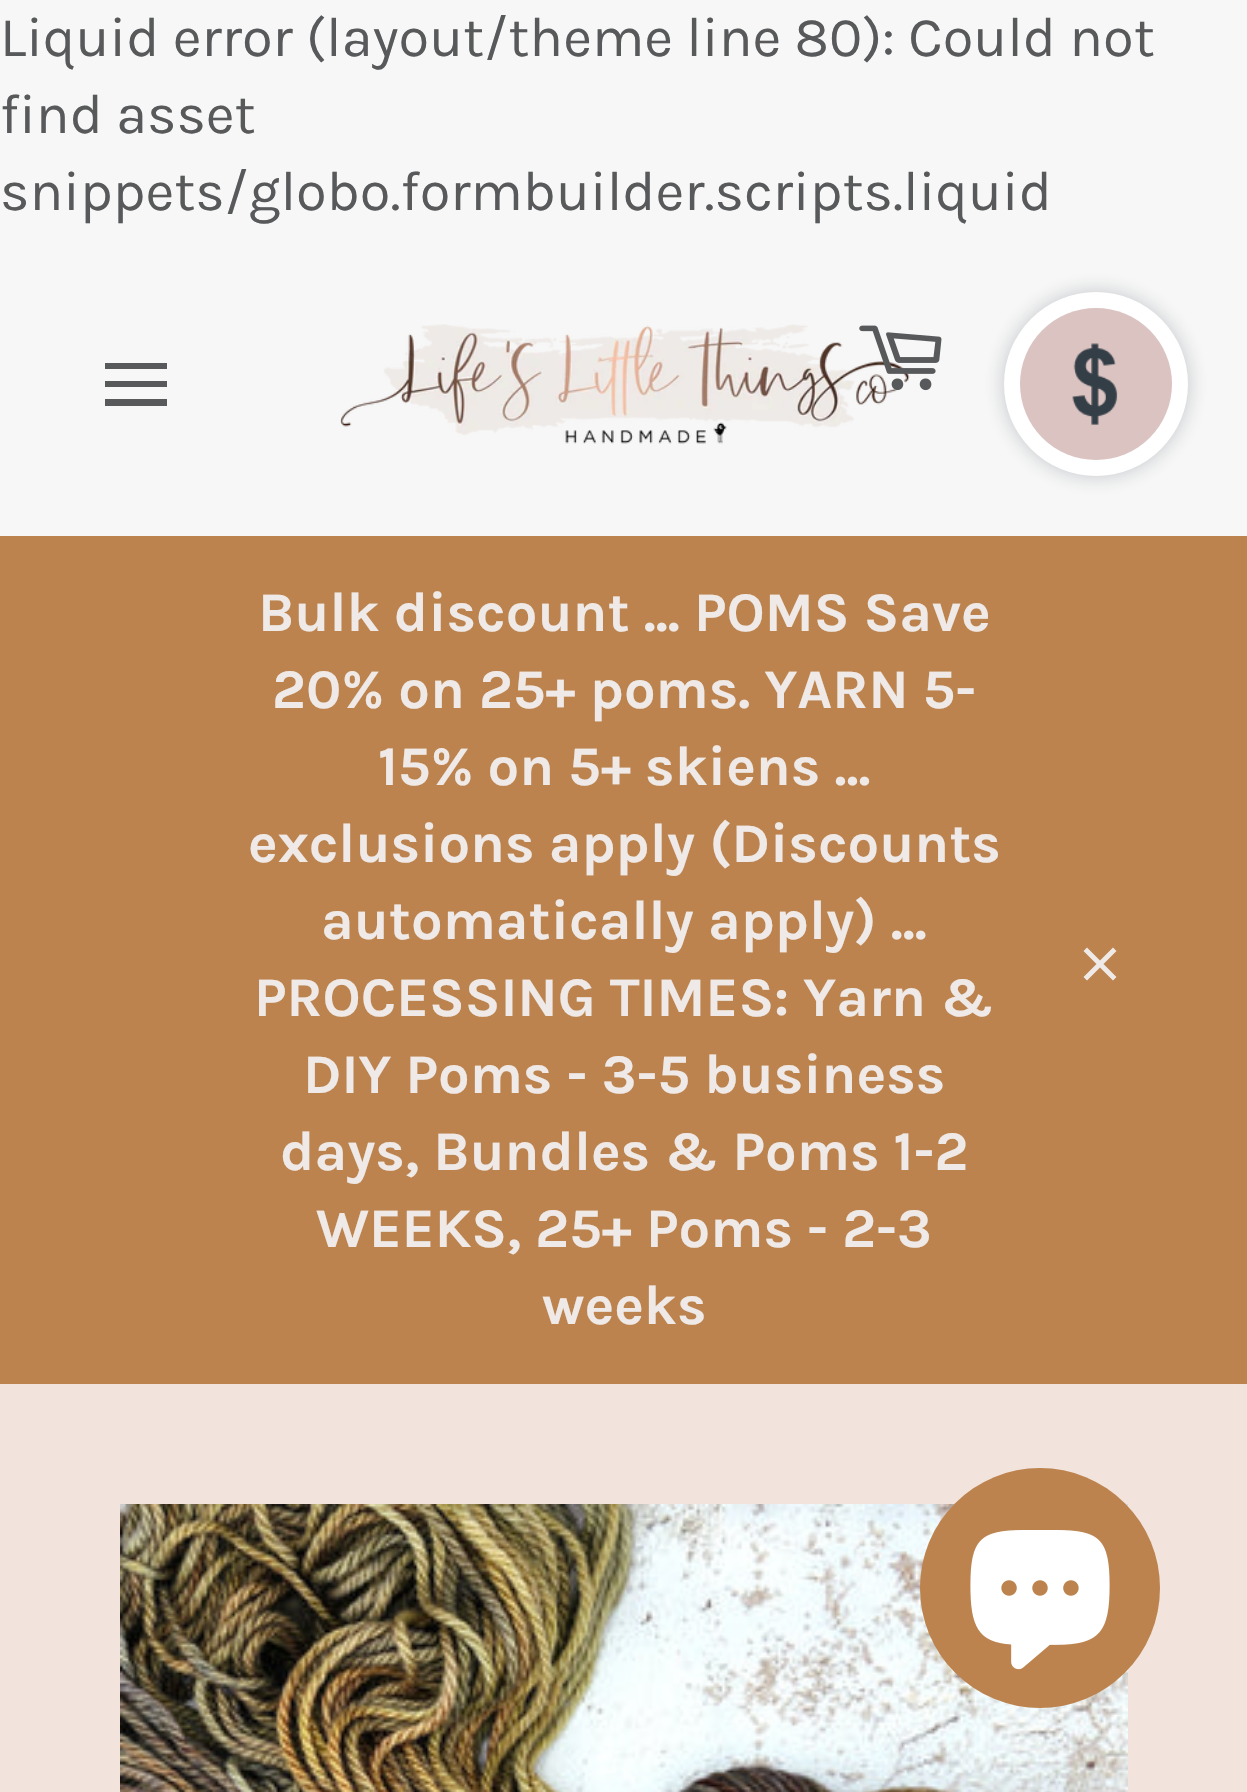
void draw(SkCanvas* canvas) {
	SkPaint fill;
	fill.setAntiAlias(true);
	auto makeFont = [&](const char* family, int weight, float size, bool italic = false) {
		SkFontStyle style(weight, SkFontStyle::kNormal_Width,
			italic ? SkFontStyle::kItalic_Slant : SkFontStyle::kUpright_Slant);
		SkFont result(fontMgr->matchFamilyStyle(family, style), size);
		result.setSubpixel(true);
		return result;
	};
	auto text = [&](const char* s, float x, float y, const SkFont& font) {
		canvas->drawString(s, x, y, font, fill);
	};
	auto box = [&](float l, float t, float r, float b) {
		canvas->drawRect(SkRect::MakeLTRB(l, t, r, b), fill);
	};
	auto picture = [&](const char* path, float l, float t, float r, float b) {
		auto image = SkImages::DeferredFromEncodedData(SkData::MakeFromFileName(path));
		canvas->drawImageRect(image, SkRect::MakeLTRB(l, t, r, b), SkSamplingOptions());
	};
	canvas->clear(0xFFF7F7F7);
	fill.setColor(0xFF58595B);
	canvas->drawPath(SkPathBuilder().moveTo(105, 381).lineTo(167, 381).lineTo(167, 387).lineTo(105, 387).close().moveTo(105, 363).lineTo(167, 363).lineTo(167, 369).lineTo(105, 369).close().moveTo(105, 399).lineTo(167, 399).lineTo(167, 406).lineTo(105, 406).close().detach(), fill);
	picture("image0.png", 340, 324, 910, 444);
	picture("image1.png", 859, 325, 942, 391);
	fill.setColor(0x40212B36);
	fill.setMaskFilter(SkMaskFilter::MakeBlur(kNormal_SkBlurStyle, 10));
	canvas->drawRoundRect(SkRect::MakeLTRB(1004, 292, 1188, 476), 92, 92, fill);
	fill.setMaskFilter(nullptr);
	fill.setColor(0xFFFFFFFF);
	canvas->drawCircle(1096, 384, 92, fill);
	fill.setColor(0xFFDBC3C1);
	canvas->drawCircle(1096, 384, 76, fill);
	picture("image2.png", 1072, 343, 1118, 425);
	fill.setColor(0xFFBC834E);
	box(0, 536, 1247, 1384);
	fill.setColor(0xFFEFEAE7);
	canvas->drawPath(SkPathBuilder().moveTo(1116.5f, 951).lineTo(1113, 947.5f).lineTo(1100, 960.5f).lineTo(1087, 947.5f).lineTo(1083.5f, 951).lineTo(1096.5f, 964).lineTo(1083.5f, 977).lineTo(1087, 980.5f).lineTo(1100, 967.5f).lineTo(1113, 980.5f).lineTo(1116.5f, 977).lineTo(1103.5f, 964).close().detach(), fill);
	fill.setColor(0xFFF2E4DC);
	box(0, 1384, 1247, 1792);
	picture("image3.png", 120, 1504, 1128, 1792);
	fill.setColor(0xFFBC834E);
	canvas->drawCircle(1040, 1588, 120, fill);
	picture("image4.png", 970, 1530, 1110, 1670);
	auto font1 = makeFont("Karla", 400, 56);
	fill.setColor(0xFF58595B);
	text("Liquid error (layout/theme line 80): Could not", 0, 56, font1);
	text("find asset", 0, 133, font1);
	text("snippets/globo.formbuilder.scripts.liquid", 0, 210, font1);
	auto font2 = makeFont("Karla", 700, 56);
	fill.setColor(0xFFEFEAE7);
	text("Bulk discount ... POMS Save", 258, 631, font2);
	text("20% on 25+ poms. YARN 5-", 272, 708, font2);
	text("15% on 5+ skiens ...", 378, 785, font2);
	text("exclusions apply (Discounts", 248, 862, font2);
	text("automatically apply) ...", 321, 939, font2);
	text("PROCESSING TIMES: Yarn &", 254, 1016, font2);
	text("DIY Poms - 3-5 business", 303, 1093, font2);
	text("days, Bundles & Poms 1-2", 280, 1170, font2);
	text("WEEKS, 25+ Poms - 2-3", 316, 1247, font2);
	text("weeks", 542, 1324, font2);
}
